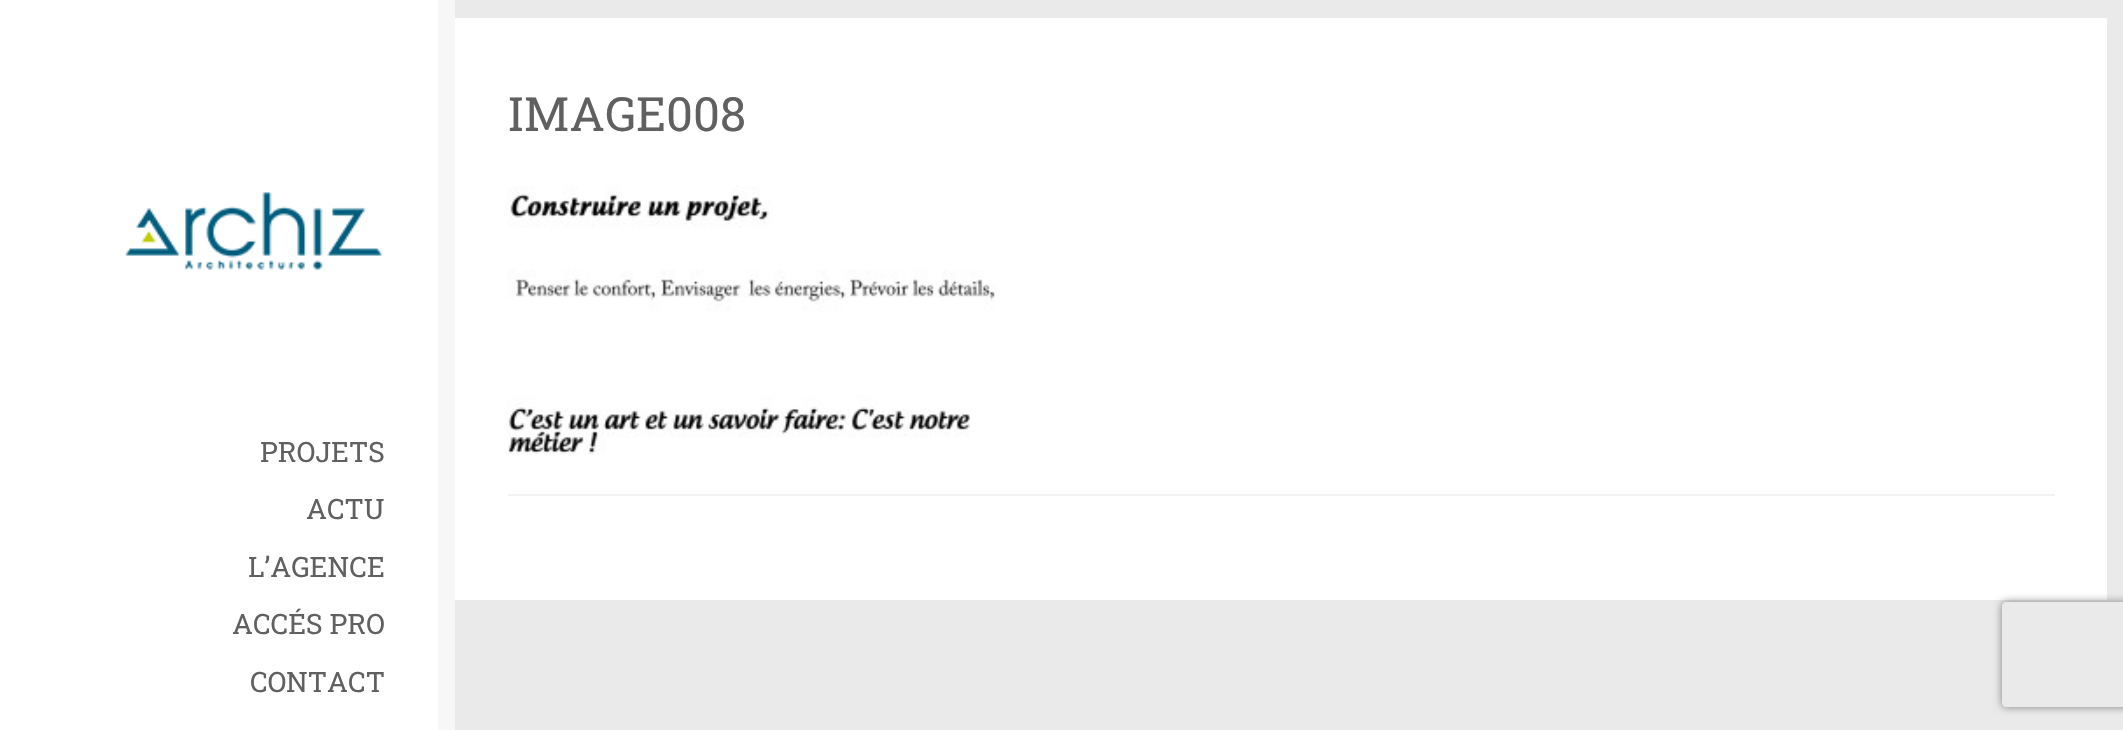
void draw(SkCanvas* canvas) {
	SkPaint fill;
	fill.setAntiAlias(true);
	auto makeFont = [&](const char* family, int weight, float size, bool italic = false) {
		SkFontStyle style(weight, SkFontStyle::kNormal_Width,
			italic ? SkFontStyle::kItalic_Slant : SkFontStyle::kUpright_Slant);
		SkFont result(fontMgr->matchFamilyStyle(family, style), size);
		result.setSubpixel(true);
		return result;
	};
	auto text = [&](const char* s, float x, float y, const SkFont& font) {
		canvas->drawString(s, x, y, font, fill);
	};
	auto box = [&](float l, float t, float r, float b) {
		canvas->drawRect(SkRect::MakeLTRB(l, t, r, b), fill);
	};
	auto picture = [&](const char* path, float l, float t, float r, float b) {
		auto image = SkImages::DeferredFromEncodedData(SkData::MakeFromFileName(path));
		canvas->drawImageRect(image, SkRect::MakeLTRB(l, t, r, b), SkSamplingOptions());
	};
	canvas->clear(0xFFEAEAEA);
	fill.setColor(0xFFFFFFFF);
	box(455, 18, 2107, 600);
	fill.setColor(0xFFF3F3F3);
	box(508, 494, 2055, 496);
	picture("image0.png", 507, 185, 996, 455);
	fill.setColor(0xFFFFFFFF);
	box(0, 0, 438, 730);
	picture("image1.png", 125, 192, 382, 270);
	fill.setColor(0xFFF7F7F7);
	box(438, 0, 455, 730);
	canvas->save();
	canvas->clipPath(SkPathBuilder(SkPathFillType::kEvenOdd).moveTo(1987, 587).lineTo(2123, 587).lineTo(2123, 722).lineTo(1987, 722).close().moveTo(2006, 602).lineTo(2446, 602).cubicTo(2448, 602, 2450, 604, 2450, 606).lineTo(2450, 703).cubicTo(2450, 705, 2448, 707, 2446, 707).lineTo(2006, 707).cubicTo(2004, 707, 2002, 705, 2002, 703).lineTo(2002, 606).cubicTo(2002, 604, 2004, 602, 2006, 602).close().detach(), true);
	fill.setColor(0xFF808080);
	fill.setMaskFilter(SkMaskFilter::MakeBlur(kNormal_SkBlurStyle, 4.5f));
	canvas->drawRoundRect(SkRect::MakeLTRB(2002, 602, 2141, 707), 4, 4, fill);
	fill.setMaskFilter(nullptr);
	canvas->restore();
	auto font1 = makeFont("Roboto Slab", 400, 47.25f);
	fill.setColor(0xFF606060);
	text("IMAGE008", 508, 131, font1);
	auto font2 = makeFont("Roboto Slab", 400, 28);
	text("PROJETS", 260, 462, font2);
	text("ACTU", 306, 519, font2);
	text("L’AGENCE", 248, 577, font2);
	text("ACCÉS PRO", 232, 634, font2);
	text("CONTACT", 250, 692, font2);
}
